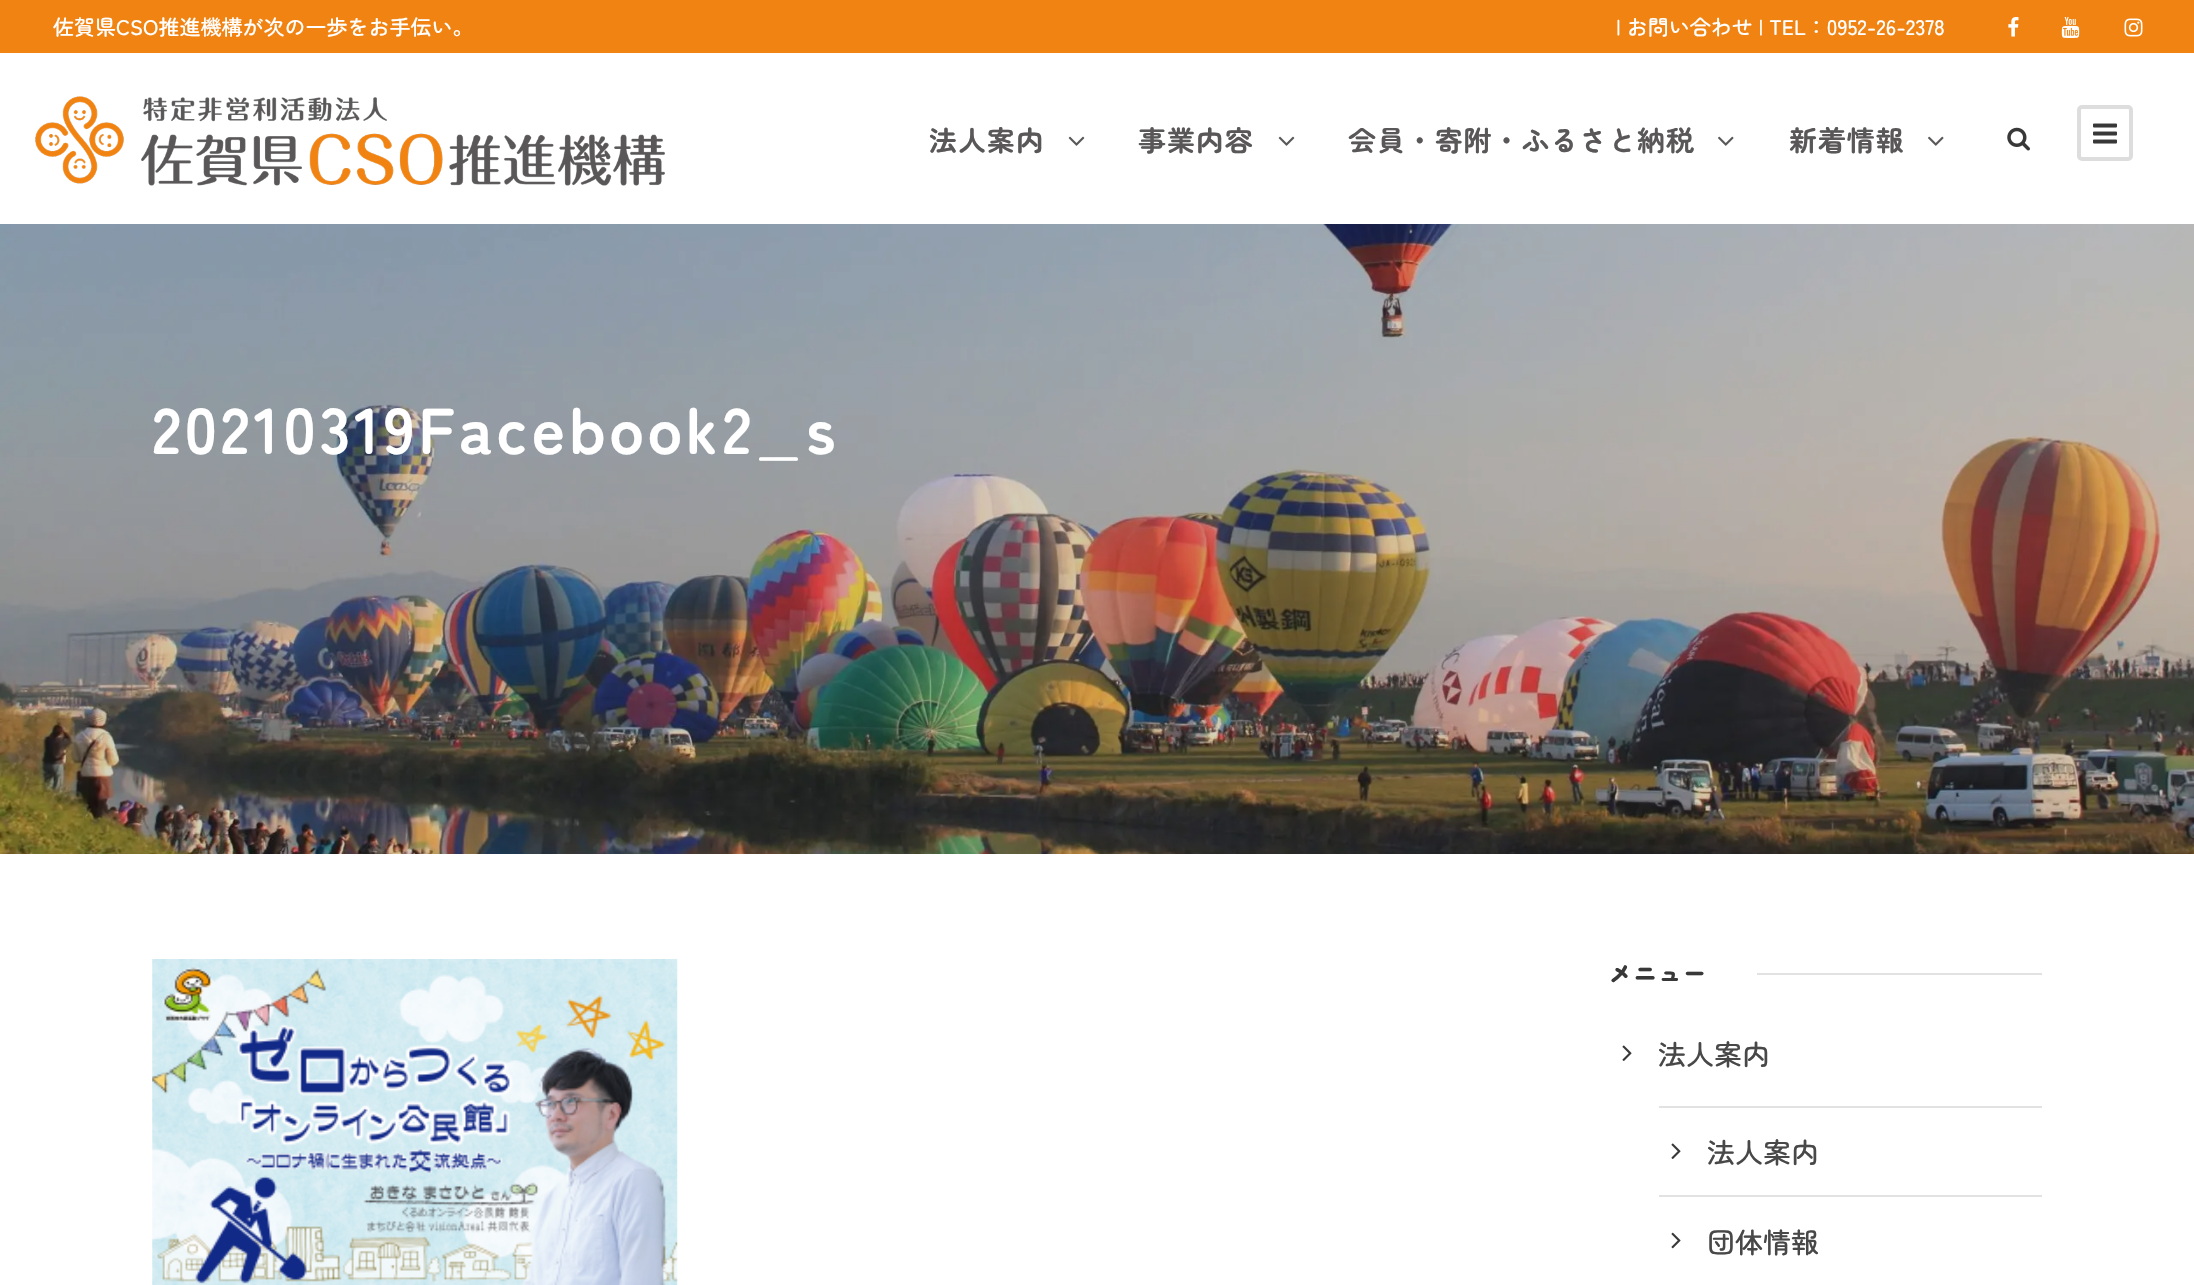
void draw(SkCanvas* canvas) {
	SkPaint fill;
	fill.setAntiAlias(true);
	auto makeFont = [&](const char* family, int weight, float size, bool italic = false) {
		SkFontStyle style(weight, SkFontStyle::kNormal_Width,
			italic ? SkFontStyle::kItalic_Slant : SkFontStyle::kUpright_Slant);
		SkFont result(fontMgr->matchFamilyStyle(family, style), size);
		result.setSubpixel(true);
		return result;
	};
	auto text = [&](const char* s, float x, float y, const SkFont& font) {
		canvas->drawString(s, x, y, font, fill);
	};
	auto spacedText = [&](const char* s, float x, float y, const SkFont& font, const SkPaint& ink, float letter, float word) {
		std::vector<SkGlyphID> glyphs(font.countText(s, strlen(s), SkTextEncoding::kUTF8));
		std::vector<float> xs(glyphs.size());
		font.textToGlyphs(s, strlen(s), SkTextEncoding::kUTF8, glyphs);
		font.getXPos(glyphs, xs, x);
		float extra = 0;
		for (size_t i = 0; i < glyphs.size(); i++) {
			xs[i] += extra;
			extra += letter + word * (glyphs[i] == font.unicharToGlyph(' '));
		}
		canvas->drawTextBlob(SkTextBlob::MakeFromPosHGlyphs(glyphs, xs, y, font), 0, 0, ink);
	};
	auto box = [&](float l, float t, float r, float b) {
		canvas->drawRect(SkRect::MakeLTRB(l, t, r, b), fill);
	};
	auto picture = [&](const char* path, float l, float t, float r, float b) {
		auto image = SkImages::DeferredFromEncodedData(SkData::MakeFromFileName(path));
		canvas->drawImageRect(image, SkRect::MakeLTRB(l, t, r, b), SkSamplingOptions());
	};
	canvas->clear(0xFFFFFFFF);
	fill.setColor(0xFFF08312);
	box(0, 0, 2194, 53);
	picture("image0.png", 2008, 17, 2019, 37);
	picture("image1.png", 2061, 17, 2080, 38);
	picture("image2.png", 2124, 18, 2143, 37);
	picture("image3.png", 35, 96, 665, 186);
	picture("image4.png", 1068, 136, 1085, 146);
	picture("image4.png", 1278, 136, 1295, 146);
	picture("image5.png", 1718, 136, 1734, 146);
	picture("image5.png", 1928, 136, 1944, 146);
	picture("image6.png", 2007, 127, 2030, 151);
	fill.setStyle(SkPaint::kStroke_Style);
	fill.setStrokeWidth(4);
	fill.setColor(0xFFDDDDDD);
	canvas->drawRoundRect(SkRect::MakeLTRB(2079, 107, 2131, 159), 3, 3, fill);
	picture("image7.png", 2093, 123, 2117, 144);
	picture("image8.png", 0, 224, 2194, 854);
	picture("image9.png", 152, 959, 678, 1285);
	fill.setStyle(SkPaint::kFill_Style);
	fill.setColor(0xFFE2E2E2);
	box(1757, 973, 2042, 975);
	picture("image10.png", 1622, 1045, 1632, 1061);
	box(1659, 1106, 2042, 1108);
	picture("image10.png", 1671, 1143, 1681, 1159);
	box(1659, 1195, 2042, 1197);
	picture("image11.png", 1671, 1232, 1681, 1249);
	auto font1 = makeFont("Zen Maru Gothic", 500, 21);
	fill.setColor(0xFFFFFFFF);
	text("佐賀県CSO推進機構が次の一歩をお手伝い。", 53, 35, font1);
	text("| お問い合わせ | TEL：0952-26-2378", 1616, 35, font1);
	auto font2 = makeFont("Zen Maru Gothic", 700, 28);
	fill.setColor(0xFF595757);
	spacedText("法人案内", 929, 151, font2, fill, 0.9f, 0);
	spacedText("事業内容", 1138, 151, font2, fill, 0.9f, 0);
	spacedText("会員・寄附・ふるさと納税", 1348, 151, font2, fill, 0.9f, 0);
	spacedText("新着情報", 1789, 151, font2, fill, 0.9f, 0);
	auto font3 = makeFont("Zen Maru Gothic", 700, 64.75f);
	fill.setColor(0xFFFFFFFF);
	spacedText("20210319Facebook2_s", 152, 454, font3, fill, 3.5f, 0);
	auto font4 = makeFont("Zen Maru Gothic", 900, 22.75f);
	fill.setColor(0xFF383838);
	spacedText("メニュー", 1609, 982, font4, fill, 2, 0);
	auto font5 = makeFont("Zen Maru Gothic", 500, 28);
	fill.setColor(0xFF484848);
	text("法人案内", 1658, 1065, font5);
	text("法人案内", 1707, 1163, font5);
	text("団体情報", 1707, 1253, font5);
}
